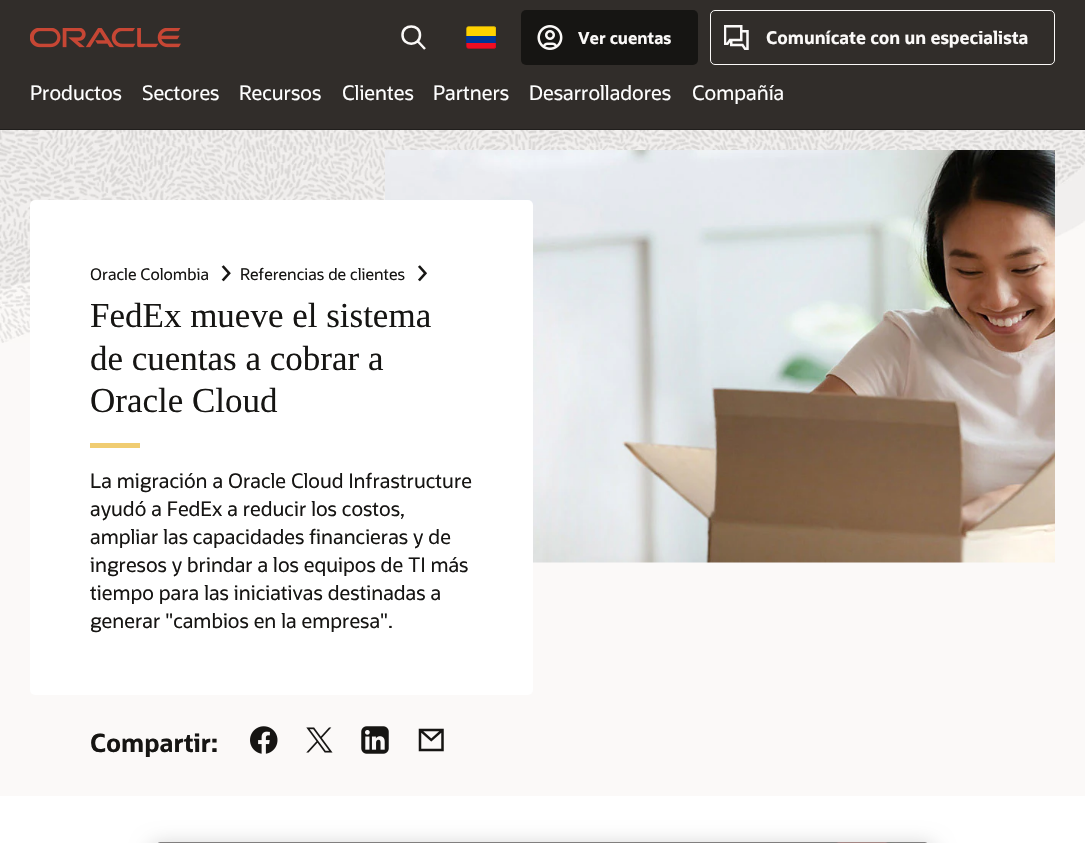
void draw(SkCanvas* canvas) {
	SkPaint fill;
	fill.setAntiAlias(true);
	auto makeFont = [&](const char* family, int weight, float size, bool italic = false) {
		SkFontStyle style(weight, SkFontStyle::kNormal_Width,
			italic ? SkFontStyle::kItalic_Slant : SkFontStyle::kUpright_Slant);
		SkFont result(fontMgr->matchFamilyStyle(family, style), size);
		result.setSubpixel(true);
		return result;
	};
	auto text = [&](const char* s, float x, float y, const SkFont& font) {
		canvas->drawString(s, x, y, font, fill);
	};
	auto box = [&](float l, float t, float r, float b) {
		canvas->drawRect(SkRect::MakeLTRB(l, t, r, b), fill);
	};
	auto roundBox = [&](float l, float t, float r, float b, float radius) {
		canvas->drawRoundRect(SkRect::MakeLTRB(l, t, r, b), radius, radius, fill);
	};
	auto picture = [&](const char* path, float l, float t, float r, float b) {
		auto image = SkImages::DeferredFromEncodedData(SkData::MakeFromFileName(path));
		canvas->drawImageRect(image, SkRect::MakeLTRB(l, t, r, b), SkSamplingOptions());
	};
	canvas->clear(0xFFFFFFFF);
	fill.setColor(0xFF312D2A);
	box(0, 0, 1085, 129);
	picture("image0.png", 30, 28, 181, 48);
	fill.setStyle(SkPaint::kStroke_Style);
	fill.setStrokeWidth(2.5f);
	fill.setColor(0xFFFBF9F8);
	canvas->drawPath(SkPathBuilder().moveTo(417.5f, 41).lineTo(425, 49).moveTo(420, 35).cubicTo(420, 46.5f, 402.5f, 46.5f, 402.5f, 35).cubicTo(402.5f, 23.5f, 420, 23.5f, 420, 35).close().detach(), fill);
	picture("image1.png", 466, 26, 496, 49);
	fill.setStyle(SkPaint::kFill_Style);
	fill.setColor(0xFF161513);
	roundBox(521, 10, 698, 65, 5);
	picture("image2.png", 537, 25, 563, 50);
	picture("image3.png", 724, 25, 749, 50);
	fill.setStyle(SkPaint::kStroke_Style);
	fill.setStrokeWidth(1);
	fill.setColor(0xFFFBF9F8);
	canvas->drawRoundRect(SkRect::MakeLTRB(710.5f, 10.5f, 1054.5f, 64.5f), 4.5f, 4.5f, fill);
	fill.setStyle(SkPaint::kFill_Style);
	fill.setColor(0xFF201E1C);
	box(0, 129, 1085, 130);
	fill.setColor(0xFFFBF9F8);
	box(0, 343, 1085, 796);
	picture("image4.png", 0, 130, 1085, 343);
	picture("image7.png", 385, 150, 1055, 563);
	fill.setColor(0xFFFFFFFF);
	roundBox(30, 200, 533, 695, 5);
	picture("image5.png", 221, 265, 231, 282);
	picture("image6.png", 418, 265, 427, 282);
	fill.setColor(0xFFF0CC71);
	box(90, 443, 140, 448);
	picture("image8.png", 250, 726, 278, 754);
	picture("image9.png", 306, 727, 333, 753);
	picture("image10.png", 361, 726, 389, 754);
	picture("image11.png", 418, 728, 444, 752);
	fill.setColor(0x2E000000);
	fill.setMaskFilter(SkMaskFilter::MakeBlur(kNormal_SkBlurStyle, 10));
	canvas->drawRoundRect(SkRect::MakeLTRB(150, 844, 935, 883), 10, 10, fill);
	fill.setMaskFilter(nullptr);
	picture("image12.png", 158, 842, 927, 843);
	auto font1 = makeFont("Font", 700, 16.5f);
	fill.setColor(0xFFFBF9F8);
	text("Ver cuentas", 578, 44, font1);
	auto font2 = makeFont("Font", 700, 17.5f);
	text("Comunícate con un especialista", 766, 44, font2);
	auto font3 = makeFont("Font", 400, 20);
	fill.setColor(0xFFFFFFFF);
	text("Productos", 30, 100, font3);
	text("Sectores", 142, 100, font3);
	text("Recursos", 239, 100, font3);
	text("Clientes", 342, 100, font3);
	text("Partners", 433, 100, font3);
	text("Desarrolladores", 529, 100, font3);
	text("Compañía", 692, 100, font3);
	auto font4 = makeFont("Font", 400, 16);
	fill.setColor(0xFF161513);
	text("Oracle Colombia", 90, 280, font4);
	text("Referencias de clientes", 240, 280, font4);
	auto font5 = makeFont("Liberation Serif", 400, 35);
	text("FedEx mueve el sistema", 90, 327, font5);
	text("de cuentas a cobrar a", 90, 370, font5);
	text("Oracle Cloud", 90, 412, font5);
	text("La migración a Oracle Cloud Infrastructure", 90, 488, font3);
	text("ayudó a FedEx a reducir los costos,", 90, 516, font3);
	text("ampliar las capacidades financieras y de", 90, 544, font3);
	text("ingresos y brindar a los equipos de TI más", 90, 572, font3);
	text("tiempo para las iniciativas destinadas a", 90, 600, font3);
	text("generar \"cambios en la empresa\".", 90, 628, font3);
	auto font6 = makeFont("Font", 700, 25);
	text("Compartir:", 90, 752, font6);
}
